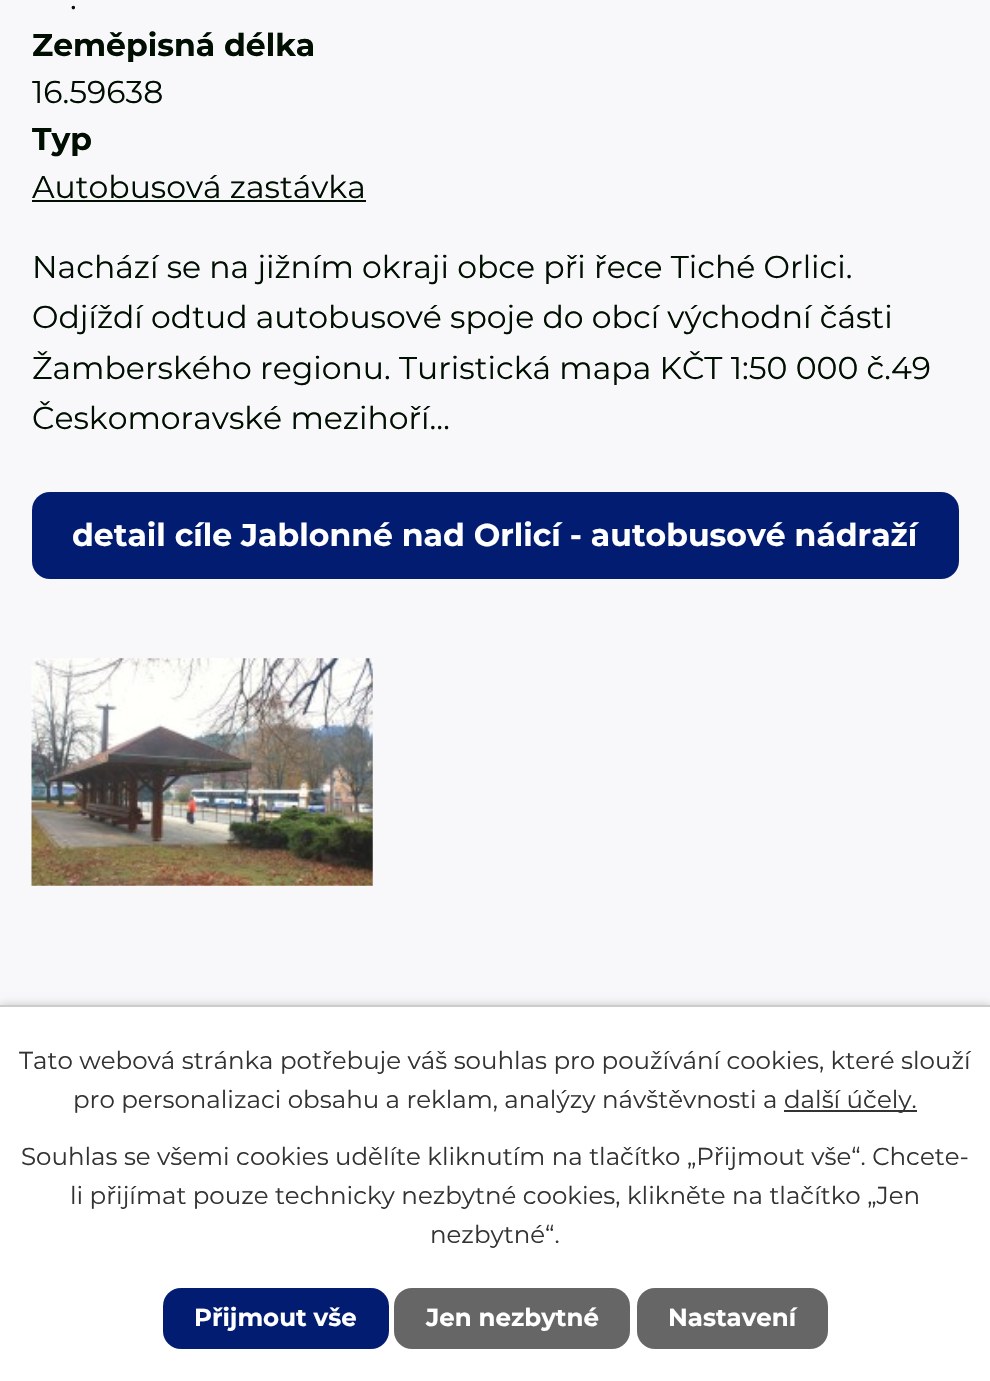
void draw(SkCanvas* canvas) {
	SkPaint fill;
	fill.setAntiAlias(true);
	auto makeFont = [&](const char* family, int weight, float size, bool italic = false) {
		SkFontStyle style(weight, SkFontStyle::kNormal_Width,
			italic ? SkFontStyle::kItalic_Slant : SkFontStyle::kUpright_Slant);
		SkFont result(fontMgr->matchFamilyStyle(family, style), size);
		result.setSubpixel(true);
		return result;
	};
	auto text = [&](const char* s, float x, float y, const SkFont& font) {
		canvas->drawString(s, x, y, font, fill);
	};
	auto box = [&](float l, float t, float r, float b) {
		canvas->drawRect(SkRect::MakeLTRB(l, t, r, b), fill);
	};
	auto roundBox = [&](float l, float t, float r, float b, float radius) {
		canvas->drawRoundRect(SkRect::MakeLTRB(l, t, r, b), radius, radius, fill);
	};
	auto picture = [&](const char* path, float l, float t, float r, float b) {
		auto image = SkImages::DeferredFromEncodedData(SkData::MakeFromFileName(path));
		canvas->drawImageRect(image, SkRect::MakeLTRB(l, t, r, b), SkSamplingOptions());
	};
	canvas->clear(0xFFF8F8FB);
	fill.setColor(0xFF000F01);
	box(32, 200, 366, 202);
	fill.setColor(0xFF021C71);
	roundBox(32, 492, 959, 579, 18);
	picture("image0.png", 31, 658, 373, 886);
	fill.setColor(0x33000000);
	fill.setMaskFilter(SkMaskFilter::MakeBlur(kNormal_SkBlurStyle, 4.5f));
	canvas->drawRect(SkRect::MakeLTRB(0, 1005, 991, 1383), fill);
	fill.setMaskFilter(nullptr);
	fill.setColor(0xFFFFFFFF);
	box(0, 1007, 990, 1381);
	fill.setColor(0xFFCCCCCC);
	box(0, 1005, 990, 1007);
	fill.setColor(0xFF333333);
	box(784, 1110, 917, 1112);
	fill.setColor(0xFF021C71);
	roundBox(163, 1288, 389, 1349, 18);
	fill.setColor(0xFF666666);
	roundBox(394, 1288, 630, 1349, 18);
	roundBox(637, 1288, 828, 1349, 18);
	auto font1 = makeFont("Montserrat", 400, 31.5f);
	fill.setColor(0xFF000F01);
	text(".", 70, 9, font1);
	auto font2 = makeFont("Montserrat", 700, 31.5f);
	text("Zeměpisná délka", 32, 56, font2);
	text("16.59638", 32, 103, font1);
	text("Typ", 32, 150, font2);
	text("Autobusová zastávka", 32, 198, font1);
	text("Nachází se na jižním okraji obce při řece Tiché Orlici.", 32, 278, font1);
	text("Odjíždí odtud autobusové spoje do obcí východní části", 32, 328, font1);
	text("Žamberského regionu. Turistická mapa KČT 1:50 000 č.49", 32, 379, font1);
	text("Českomoravské mezihoří…", 32, 429, font1);
	fill.setColor(0xFFFFFFFF);
	text("detail cíle Jablonné nad Orlicí - autobusové nádraží", 72, 546, font2);
	auto font3 = makeFont("Montserrat", 400, 24.5f);
	fill.setColor(0xFF333333);
	text("Tato webová stránka potřebuje váš souhlas pro používání cookies, které slouží", 19, 1069, font3);
	text("pro personalizaci obsahu a reklam, analýzy návštěvnosti a", 73, 1108, font3);
	text("další účely.", 784, 1108, font3);
	text("Souhlas se všemi cookies udělíte kliknutím na tlačítko „Přijmout vše“. Chcete-", 21, 1165, font3);
	text("li přijímat pouze technicky nezbytné cookies, klikněte na tlačítko „Jen", 70, 1204, font3);
	text("nezbytné“.", 430, 1243, font3);
	auto font4 = makeFont("Montserrat", 700, 24.5f);
	fill.setColor(0xFFFFFFFF);
	text("Přijmout vše", 194, 1326, font4);
	text("Jen nezbytné", 426, 1326, font4);
	text("Nastavení", 668, 1326, font4);
}
